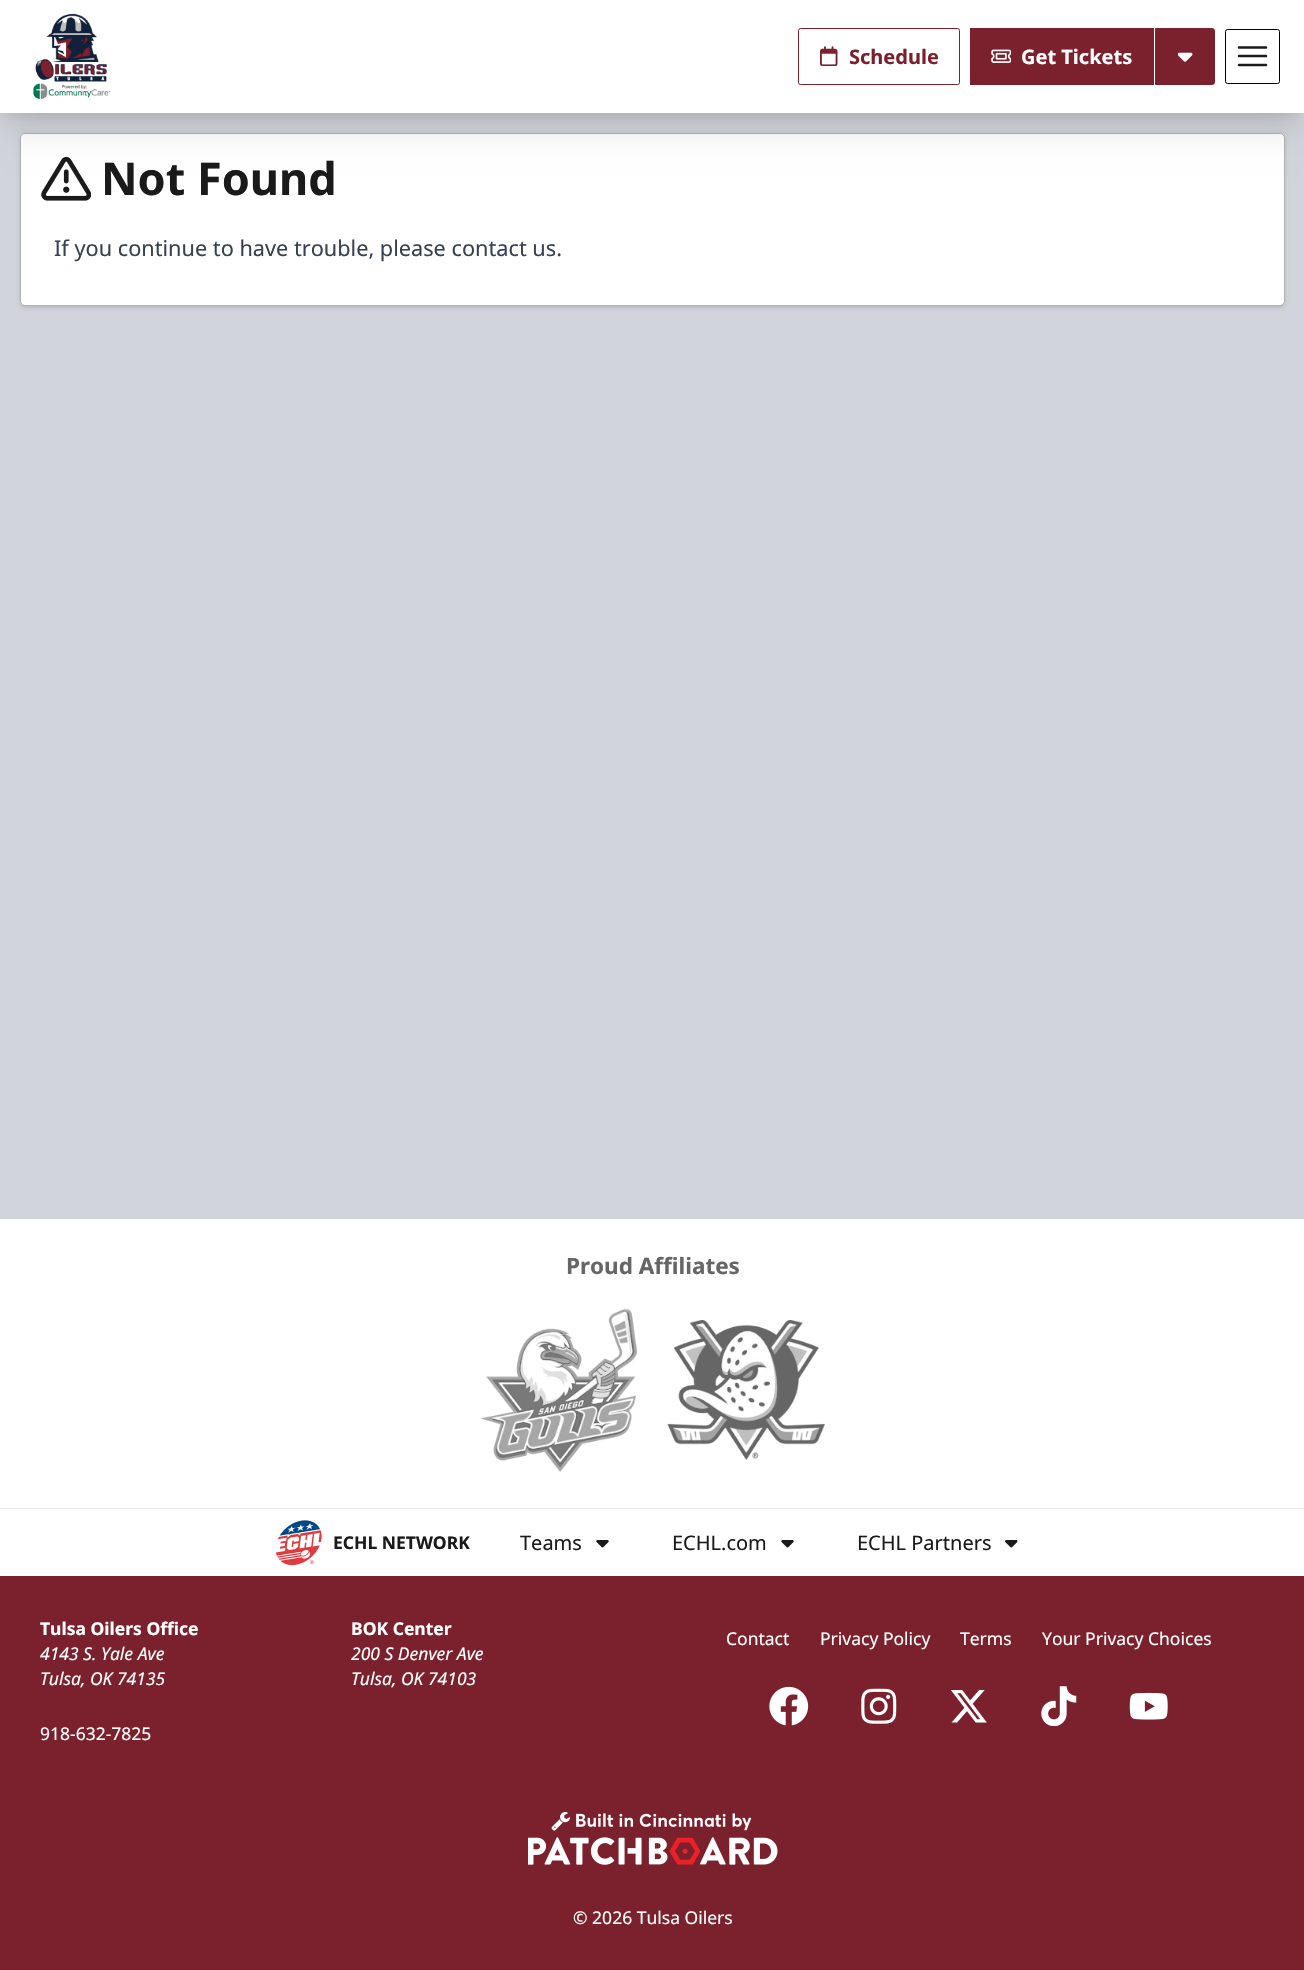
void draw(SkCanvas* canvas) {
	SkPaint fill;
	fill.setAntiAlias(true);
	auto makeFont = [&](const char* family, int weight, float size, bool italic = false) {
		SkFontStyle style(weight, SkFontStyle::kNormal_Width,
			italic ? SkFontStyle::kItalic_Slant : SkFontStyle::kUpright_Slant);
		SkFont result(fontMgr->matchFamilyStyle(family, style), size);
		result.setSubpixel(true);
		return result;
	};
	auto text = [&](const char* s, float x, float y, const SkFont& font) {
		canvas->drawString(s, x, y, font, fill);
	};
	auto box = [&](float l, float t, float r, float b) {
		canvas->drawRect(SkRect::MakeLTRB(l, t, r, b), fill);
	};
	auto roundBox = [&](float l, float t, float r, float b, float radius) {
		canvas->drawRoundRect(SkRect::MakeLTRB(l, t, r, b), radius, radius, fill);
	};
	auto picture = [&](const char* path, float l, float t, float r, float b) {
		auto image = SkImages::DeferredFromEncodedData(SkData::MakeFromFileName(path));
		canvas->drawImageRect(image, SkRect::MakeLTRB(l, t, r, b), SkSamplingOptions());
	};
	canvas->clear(0xFFD1D5DB);
	fill.setColor(0x1A000000);
	fill.setMaskFilter(SkMaskFilter::MakeBlur(kNormal_SkBlurStyle, 1));
	canvas->drawRoundRect(SkRect::MakeLTRB(21, 135, 1284, 306), 4, 4, fill);
	fill.setMaskFilter(nullptr);
	fill.setMaskFilter(SkMaskFilter::MakeBlur(kNormal_SkBlurStyle, 2));
	canvas->drawRoundRect(SkRect::MakeLTRB(20, 134, 1285, 308), 5, 5, fill);
	fill.setMaskFilter(nullptr);
	fill.setColor(0xFFFFFFFF);
	roundBox(20, 133, 1285, 306, 5);
	fill.setStyle(SkPaint::kStroke_Style);
	fill.setStrokeWidth(1);
	fill.setColor(0x4D000000);
	canvas->drawRoundRect(SkRect::MakeLTRB(20.5f, 133.5f, 1284.5f, 305.5f), 4.5f, 4.5f, fill);
	fill.setStyle(SkPaint::kFill_Style);
	fill.setColor(0x1A000000);
	fill.setMaskFilter(SkMaskFilter::MakeBlur(kNormal_SkBlurStyle, 6));
	canvas->drawRect(SkRect::MakeLTRB(8, 18, 1298, 115), fill);
	fill.setMaskFilter(nullptr);
	picture("image4.png", 41, 156, 91, 201);
	fill.setMaskFilter(SkMaskFilter::MakeBlur(kNormal_SkBlurStyle, 15.5f));
	canvas->drawRect(SkRect::MakeLTRB(6, 31, 1299, 131), fill);
	fill.setMaskFilter(nullptr);
	fill.setColor(0xFFFFFFFF);
	box(0, 0, 1304, 113);
	picture("image0.png", 33, 13, 111, 99);
	fill.setStyle(SkPaint::kStroke_Style);
	fill.setColor(0xFF7B212D);
	canvas->drawRoundRect(SkRect::MakeLTRB(798.5f, 28.5f, 959.5f, 84.5f), 2, 2, fill);
	picture("image1.png", 820, 46, 838, 66);
	fill.setStyle(SkPaint::kFill_Style);
	box(970, 28, 1154, 85);
	picture("image2.png", 991, 49, 1011, 63);
	canvas->drawPath(SkPathBuilder().moveTo(1155.5f, 28.5f).lineTo(1212.5f, 28.5f).cubicTo(1213.5f, 28.5f, 1214.5f, 29.5f, 1214.5f, 30.5f).lineTo(1214.5f, 82.5f).cubicTo(1214.5f, 83.5f, 1213.5f, 84.5f, 1212.5f, 84.5f).lineTo(1155.5f, 84.5f).close().detach(), fill);
	fill.setStyle(SkPaint::kStroke_Style);
	canvas->drawPath(SkPathBuilder().moveTo(1155.5f, 28.5f).lineTo(1212.5f, 28.5f).cubicTo(1213.5f, 28.5f, 1214.5f, 29.5f, 1214.5f, 30.5f).lineTo(1214.5f, 82.5f).cubicTo(1214.5f, 83.5f, 1213.5f, 84.5f, 1212.5f, 84.5f).lineTo(1155.5f, 84.5f).close().detach(), fill);
	picture("image3.png", 1178, 52, 1193, 62);
	fill.setColor(0xFF000000);
	canvas->drawRoundRect(SkRect::MakeLTRB(1225.5f, 29.5f, 1279.5f, 83.5f), 2, 2, fill);
	fill.setStrokeWidth(2.5f);
	fill.setStrokeCap(SkPaint::kRound_Cap);
	fill.setStrokeJoin(SkPaint::kRound_Join);
	fill.setColor(0xFF1A1A1A);
	canvas->drawPath(SkPathBuilder().moveTo(1239, 47.5f).lineTo(1266, 47.5f).moveTo(1239, 56).lineTo(1266, 56).moveTo(1239, 65).lineTo(1266, 65).detach(), fill);
	fill.setStyle(SkPaint::kFill_Style);
	fill.setColor(0xFFFFFFFF);
	box(0, 1219, 1304, 1508);
	picture("image5.png", 480, 1308, 638, 1472);
	picture("image6.png", 667, 1320, 825, 1460);
	box(0, 1509, 1304, 1576);
	fill.setColor(0xFFE5E7EB);
	box(0, 1508, 1304, 1509);
	picture("image7.png", 276, 1520, 322, 1566);
	picture("image8.png", 596, 1540, 609, 1548);
	picture("image8.png", 781, 1540, 794, 1548);
	picture("image9.png", 1005, 1540, 1018, 1548);
	fill.setColor(0xFF7B212D);
	box(0, 1576, 1304, 1970);
	picture("image10.png", 769, 1686, 809, 1726);
	picture("image11.png", 861, 1688, 897, 1724);
	picture("image12.png", 951, 1690, 987, 1723);
	picture("image13.png", 1041, 1686, 1077, 1726);
	picture("image14.png", 1129, 1692, 1168, 1720);
	picture("image15.png", 528, 1812, 778, 1865);
	auto font1 = makeFont("Noto Sans", 700, 20);
	text("Schedule", 849, 64, font1);
	fill.setColor(0xFFFFFFFF);
	text("Get Tickets", 1021, 64, font1);
	auto font2 = makeFont("Noto Sans", 700, 45);
	fill.setColor(0xFF1A1A1A);
	text("Not Found", 101, 195, font2);
	auto font3 = makeFont("Noto Sans", 400, 21.7f);
	fill.setColor(0xFF374151);
	text("If you continue to have trouble, please contact us.", 54, 256, font3);
	auto font4 = makeFont("Noto Sans", 700, 22.5f);
	fill.setColor(0xFF666666);
	text("Proud Affiliates", 566, 1274, font4);
	auto font5 = makeFont("Noto Sans", 700, 17.5f);
	fill.setColor(0xFF1A1A1A);
	text("ECHL NETWORK", 333, 1549, font5);
	auto font6 = makeFont("Noto Sans", 400, 20);
	text("Teams", 520, 1550, font6);
	text("ECHL.com", 672, 1550, font6);
	text("ECHL Partners", 857, 1550, font6);
	fill.setColor(0xFFFFFFFF);
	text("Tulsa Oilers Office", 40, 1635, font5);
	auto font7 = makeFont("Noto Sans", 400, 17.5f, true);
	text("4143 S. Yale Ave", 40, 1660, font7);
	text("Tulsa, OK 74135", 40, 1685, font7);
	auto font8 = makeFont("Noto Sans", 400, 17.5f);
	text("918-632-7825", 40, 1740, font8);
	text("BOK Center", 351, 1635, font5);
	text("200 S Denver Ave", 351, 1660, font7);
	text("Tulsa, OK 74103", 351, 1685, font7);
	text("Contact", 726, 1645, font8);
	text("Privacy Policy", 820, 1645, font8);
	text("Terms", 960, 1645, font8);
	text("Your Privacy Choices", 1042, 1645, font8);
	text("© 2026 Tulsa Oilers", 573, 1924, font8);
}
